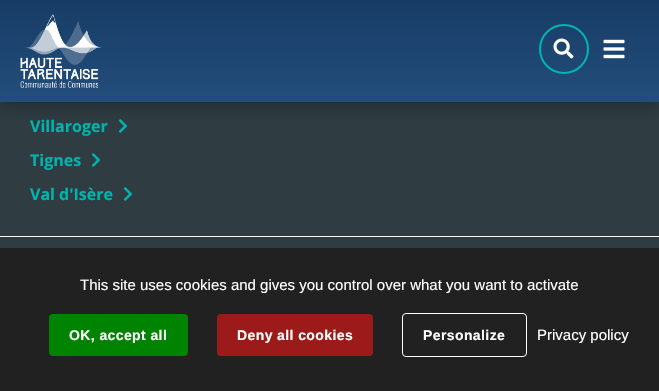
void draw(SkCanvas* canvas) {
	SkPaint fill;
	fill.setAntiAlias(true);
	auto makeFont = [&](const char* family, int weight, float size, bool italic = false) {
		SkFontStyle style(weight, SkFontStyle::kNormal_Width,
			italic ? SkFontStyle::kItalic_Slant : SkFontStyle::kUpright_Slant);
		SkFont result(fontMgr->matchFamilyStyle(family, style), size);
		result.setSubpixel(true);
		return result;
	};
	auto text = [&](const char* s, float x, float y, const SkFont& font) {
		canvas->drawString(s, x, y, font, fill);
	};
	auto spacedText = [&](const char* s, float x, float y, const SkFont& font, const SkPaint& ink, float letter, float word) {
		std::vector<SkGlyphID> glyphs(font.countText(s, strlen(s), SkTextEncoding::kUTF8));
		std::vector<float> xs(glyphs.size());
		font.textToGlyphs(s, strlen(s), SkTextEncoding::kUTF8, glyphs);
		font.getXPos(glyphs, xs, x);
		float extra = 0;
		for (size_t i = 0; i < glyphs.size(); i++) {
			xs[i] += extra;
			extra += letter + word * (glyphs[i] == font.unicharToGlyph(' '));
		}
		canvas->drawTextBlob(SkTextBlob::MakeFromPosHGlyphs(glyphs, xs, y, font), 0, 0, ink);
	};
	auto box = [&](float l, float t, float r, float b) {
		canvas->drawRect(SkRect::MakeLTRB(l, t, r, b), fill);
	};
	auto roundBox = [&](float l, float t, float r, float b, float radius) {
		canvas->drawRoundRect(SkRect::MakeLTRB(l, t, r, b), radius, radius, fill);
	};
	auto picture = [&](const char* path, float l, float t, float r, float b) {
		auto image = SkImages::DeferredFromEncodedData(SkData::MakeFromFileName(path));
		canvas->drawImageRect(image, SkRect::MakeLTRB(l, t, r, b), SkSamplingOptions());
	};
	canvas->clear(0xFF2F3C41);
	picture("image3.png", 118, 119, 127, 133);
	fill.setColor(0x40000000);
	fill.setMaskFilter(SkMaskFilter::MakeBlur(kNormal_SkBlurStyle, 7.5f));
	canvas->drawRect(SkRect::MakeLTRB(0, 5, 659, 107), fill);
	fill.setMaskFilter(nullptr);
	{
		const SkColor colors[] = {0xFF173D65, 0xFF234D7C};
		const float stops[] = {0, 1};
		const SkPoint ends[] = {{330, 0}, {330, 102}};
		fill.setShader(SkGradientShader::MakeLinear(ends, colors, stops, 2, SkTileMode::kClamp));
		fill.setAlpha(255);
	}
	box(0, 0, 659, 102);
	picture("image0.png", 20, 14, 102, 88);
	fill.setStyle(SkPaint::kStroke_Style);
	fill.setStrokeWidth(2);
	fill.setShader(nullptr);
	fill.setColor(0xFF01B5AF);
	canvas->drawCircle(564, 49, 24, fill);
	picture("image1.png", 553, 38, 574, 59);
	picture("image2.png", 603, 39, 625, 59);
	fill.setStyle(SkPaint::kFill_Style);
	fill.setColor(0xFFFFFFFF);
	box(0, 236, 659, 237);
	picture("image3.png", 91, 153, 100, 167);
	picture("image3.png", 123, 187, 132, 201);
	fill.setColor(0xFF212121);
	box(0, 248, 659, 391);
	fill.setColor(0xFF008300);
	roundBox(49, 314, 188, 356, 4);
	fill.setColor(0xFF9C1A1A);
	roundBox(217, 314, 373, 356, 4);
	fill.setStyle(SkPaint::kStroke_Style);
	fill.setStrokeWidth(1);
	fill.setColor(0xFFFFFFFF);
	canvas->drawRoundRect(SkRect::MakeLTRB(402.5f, 313.5f, 526.5f, 356.5f), 3.5f, 3.5f, fill);
	auto font1 = makeFont("Open Sans", 700, 16);
	fill.setStyle(SkPaint::kFill_Style);
	fill.setColor(0xFF01B5AF);
	text("Villaroger", 30, 132, font1);
	text("Tignes", 30, 166, font1);
	text("Val d'Isère", 30, 200, font1);
	auto font2 = makeFont("Liberation Sans", 400, 15);
	fill.setColor(0xFFFFFFFF);
	text("This site uses cookies and gives you control over what you want to activate", 80, 290, font2);
	auto font3 = makeFont("Liberation Sans", 700, 14);
	spacedText("OK, accept all", 69, 340, font3, fill, 0.4f, 0);
	spacedText("Deny all cookies", 237, 340, font3, fill, 0.4f, 0);
	spacedText("Personalize", 423, 340, font3, fill, 0.4f, 0);
	text("Privacy policy", 537, 340, font2);
}
